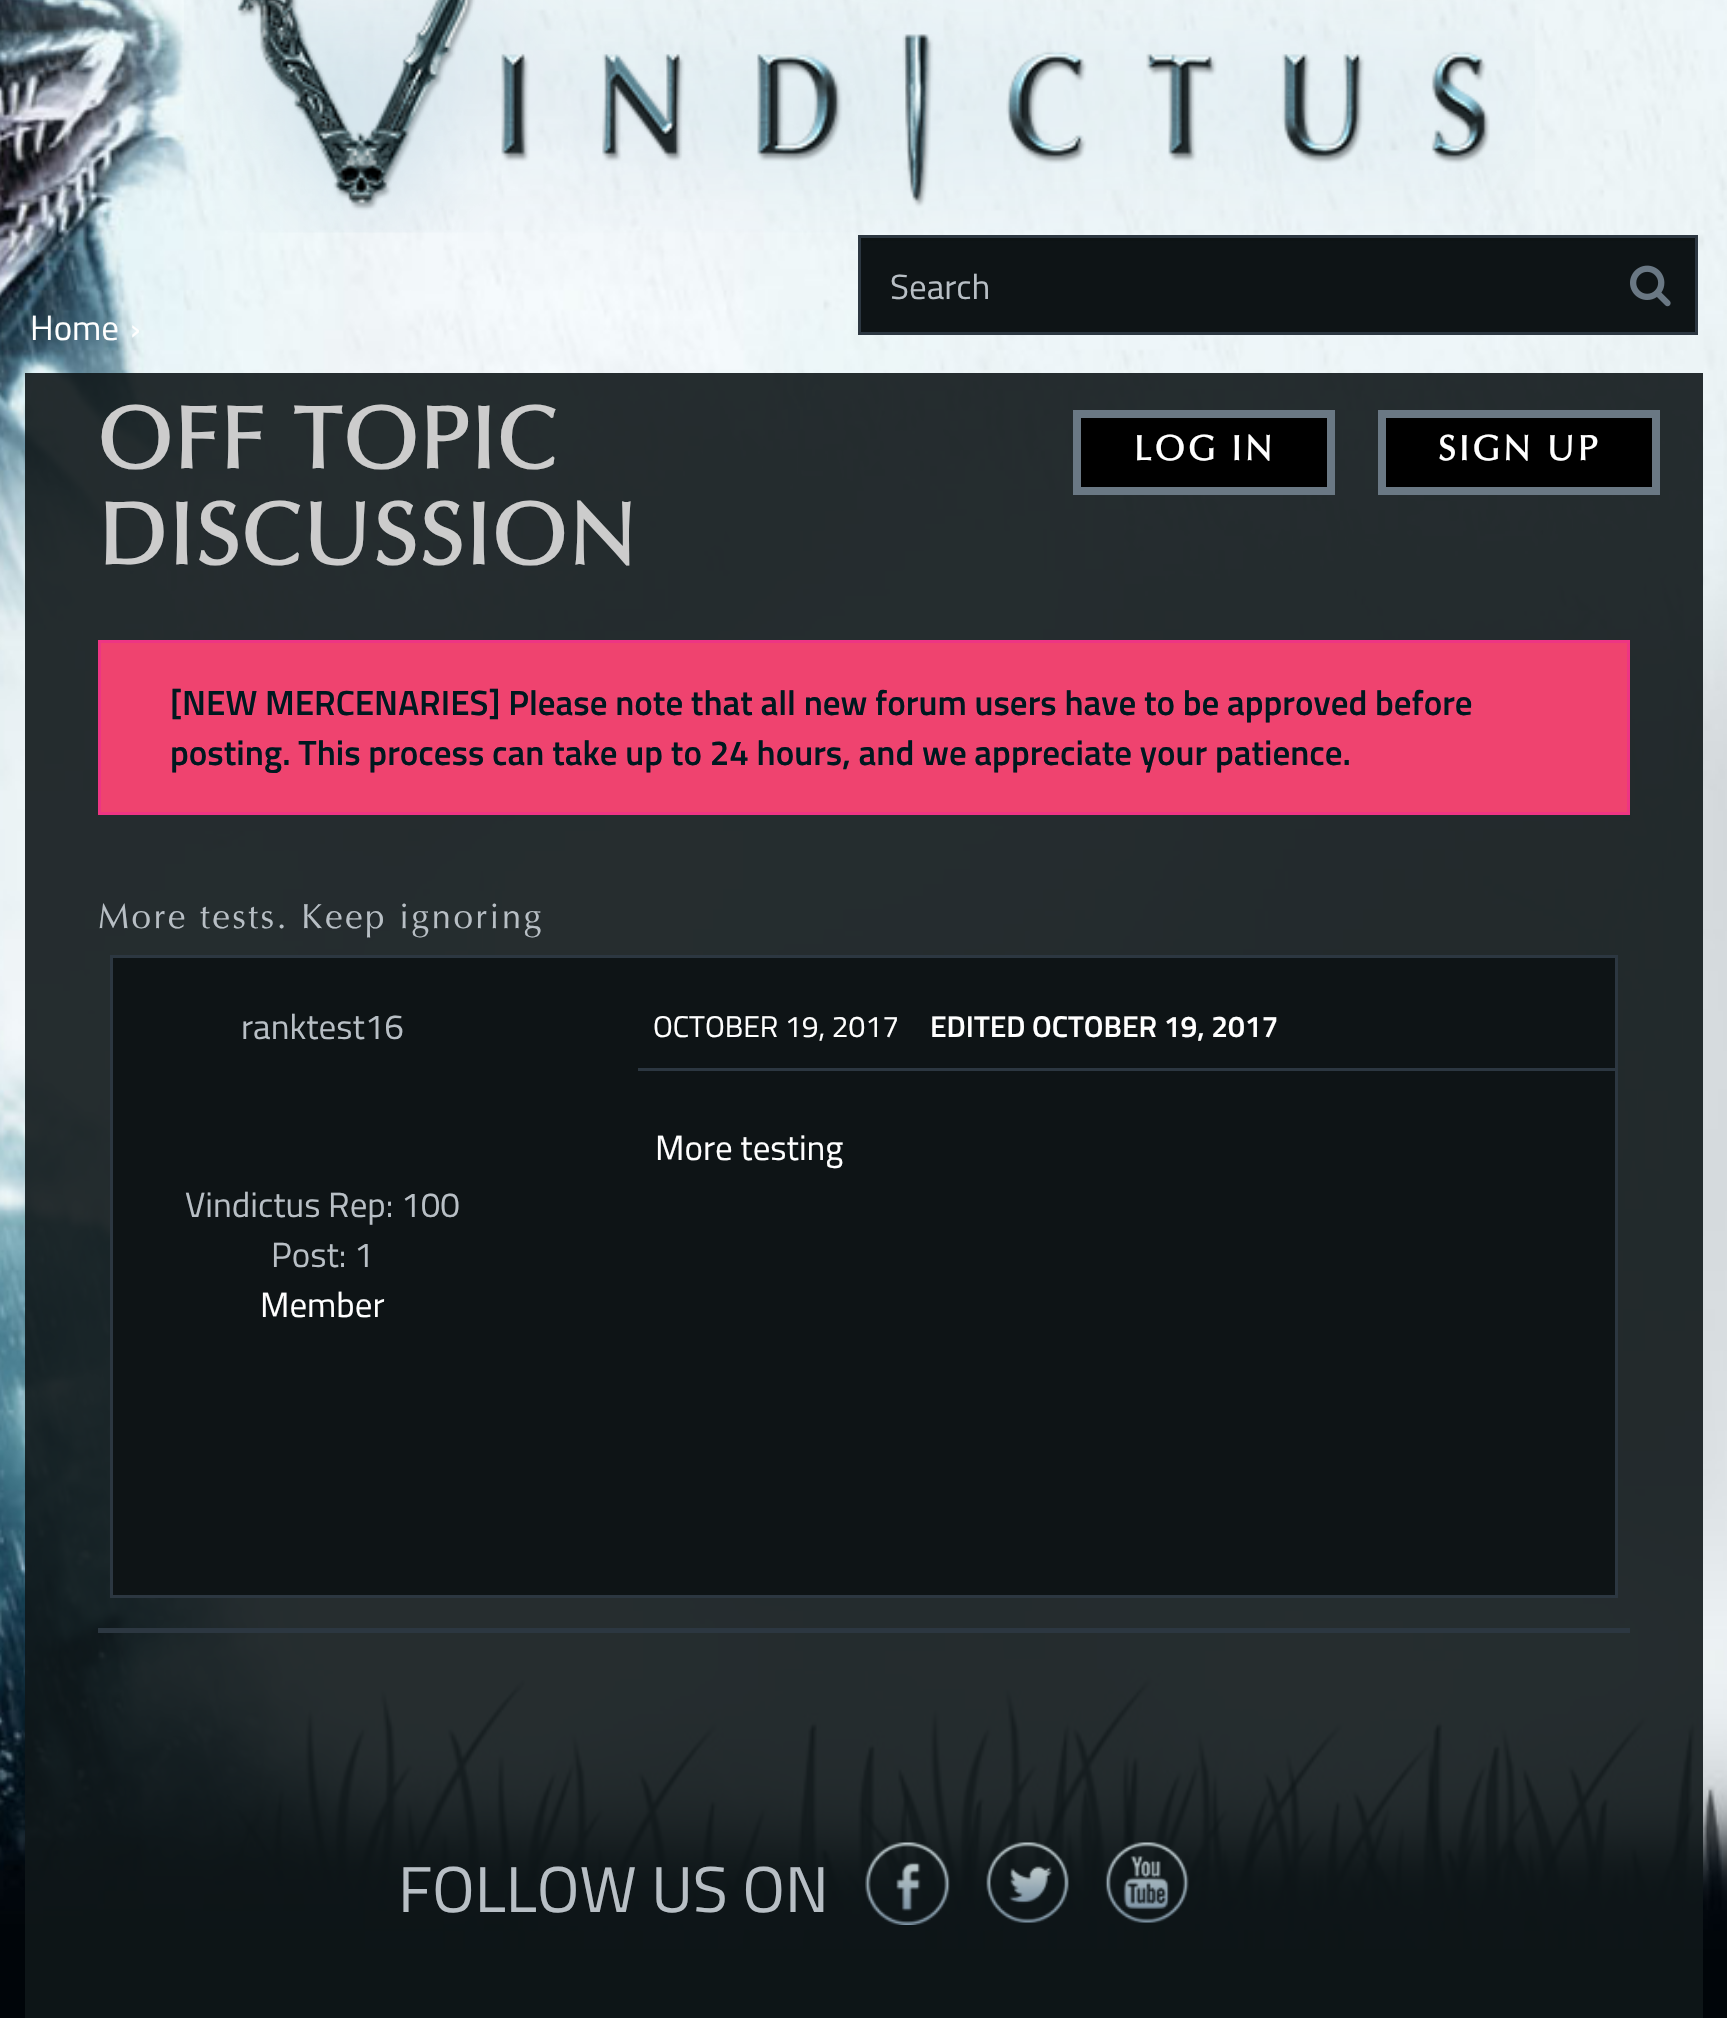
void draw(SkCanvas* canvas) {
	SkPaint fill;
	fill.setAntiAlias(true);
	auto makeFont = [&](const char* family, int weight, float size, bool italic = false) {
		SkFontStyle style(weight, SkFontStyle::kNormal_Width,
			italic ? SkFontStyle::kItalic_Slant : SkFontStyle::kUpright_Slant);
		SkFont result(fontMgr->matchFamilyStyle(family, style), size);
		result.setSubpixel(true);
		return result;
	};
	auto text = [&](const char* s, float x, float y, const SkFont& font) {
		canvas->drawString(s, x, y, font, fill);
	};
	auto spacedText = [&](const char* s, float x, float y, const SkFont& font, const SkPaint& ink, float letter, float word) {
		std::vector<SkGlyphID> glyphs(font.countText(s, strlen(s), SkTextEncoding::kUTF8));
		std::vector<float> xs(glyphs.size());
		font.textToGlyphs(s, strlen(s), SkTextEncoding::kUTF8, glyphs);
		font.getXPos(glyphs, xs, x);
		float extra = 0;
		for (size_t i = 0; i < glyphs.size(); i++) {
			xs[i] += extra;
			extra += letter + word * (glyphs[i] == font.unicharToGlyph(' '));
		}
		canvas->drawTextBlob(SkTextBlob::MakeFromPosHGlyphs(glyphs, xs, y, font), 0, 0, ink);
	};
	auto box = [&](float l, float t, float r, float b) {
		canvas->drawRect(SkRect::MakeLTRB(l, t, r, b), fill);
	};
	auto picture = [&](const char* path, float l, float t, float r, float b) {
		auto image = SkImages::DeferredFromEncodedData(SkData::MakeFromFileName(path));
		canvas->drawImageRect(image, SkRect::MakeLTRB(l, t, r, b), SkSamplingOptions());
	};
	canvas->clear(0xFF000509);
	picture("image0.png", 0, 0, 1727, 1949);
	picture("image1.png", 184, 0, 1535, 233);
	fill.setColor(0xFF0E1416);
	box(861, 241, 1695, 332);
	fill.setColor(0xFF0D1314);
	box(860, 238, 1695, 241);
	fill.setStyle(SkPaint::kStroke_Style);
	fill.setStrokeWidth(3);
	fill.setColor(0xFF2C3741);
	canvas->drawRect(SkRect::MakeLTRB(859.5f, 236.5f, 1696.5f, 333.5f), fill);
	picture("image2.png", 1630, 265, 1671, 307);
	fill.setStyle(SkPaint::kFill_Style);
	fill.setColor(0xE60E1618);
	box(25, 373, 1703, 2018);
	fill.setColor(0xFFEF436F);
	canvas->drawRect(SkRect::MakeLTRB(99.5f, 641.5f, 1628.5f, 813.5f), fill);
	fill.setStyle(SkPaint::kStroke_Style);
	fill.setColor(0xFFEE3583);
	canvas->drawRect(SkRect::MakeLTRB(99.5f, 641.5f, 1628.5f, 813.5f), fill);
	fill.setStyle(SkPaint::kFill_Style);
	fill.setColor(0xFF0E1416);
	canvas->drawRect(SkRect::MakeLTRB(111.5f, 956.5f, 1616.5f, 1596.5f), fill);
	fill.setStyle(SkPaint::kStroke_Style);
	fill.setColor(0xFF2C3741);
	canvas->drawRect(SkRect::MakeLTRB(111.5f, 956.5f, 1616.5f, 1596.5f), fill);
	fill.setStyle(SkPaint::kFill_Style);
	box(638, 1068, 1615, 1071);
	box(98, 1628, 1630, 1633);
	fill.setColor(0xFF000000);
	canvas->drawRect(SkRect::MakeLTRB(1077, 414, 1331, 491), fill);
	fill.setStyle(SkPaint::kStroke_Style);
	fill.setStrokeWidth(8);
	fill.setColor(0xFF6A7884);
	canvas->drawRect(SkRect::MakeLTRB(1077, 414, 1331, 491), fill);
	fill.setStyle(SkPaint::kFill_Style);
	fill.setColor(0xFF000000);
	canvas->drawRect(SkRect::MakeLTRB(1382, 414, 1656, 491), fill);
	fill.setStyle(SkPaint::kStroke_Style);
	fill.setColor(0xFF6A7884);
	canvas->drawRect(SkRect::MakeLTRB(1382, 414, 1656, 491), fill);
	picture("image3.png", 865, 1842, 950, 1925);
	picture("image4.png", 986, 1842, 1069, 1923);
	picture("image5.png", 1105, 1842, 1189, 1923);
	auto font1 = makeFont("Titillium Web", 400, 35);
	fill.setStyle(SkPaint::kFill_Style);
	fill.setColor(0xFFB8BFC5);
	text("Search", 890, 299, font1);
	fill.setColor(0xFFFFFFFF);
	text("Home", 30, 340, font1);
	text("›", 130, 340, font1);
	auto font2 = makeFont("Optima", 700, 87.5f);
	fill.setColor(0xFFCCCCCC);
	spacedText("OFF TOPIC", 98, 468, font2, fill, 2.5f, 0);
	spacedText("DISCUSSION", 98, 564, font2, fill, 2.5f, 0);
	auto font3 = makeFont("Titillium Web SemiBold", 600, 35);
	fill.setColor(0xFF00181F);
	text("[NEW MERCENARIES] Please note that all new forum users have to be approved before", 170, 715, font3);
	text("posting. This process can take up to 24 hours, and we appreciate your patience.", 170, 765, font3);
	auto font4 = makeFont("Optima", 400, 35);
	fill.setColor(0xFFB8BFC5);
	spacedText("More tests. Keep ignoring", 98, 928, font4, fill, 2.5f, 0);
	text("ranktest16", 241, 1039, font1);
	text("Vindictus Rep: 100", 185, 1217, font1);
	text("Post: 1", 271, 1267, font1);
	fill.setColor(0xFFFFFFFF);
	text("Member", 260, 1317, font1);
	auto font5 = makeFont("Titillium Web", 400, 30);
	text("OCTOBER 19, 2017", 653, 1037, font5);
	auto font6 = makeFont("Titillium Web SemiBold", 600, 30);
	text("EDITED OCTOBER 19, 2017", 930, 1037, font6);
	text("More testing", 655, 1160, font1);
	auto font7 = makeFont("Optima", 700, 35);
	spacedText("LOG IN", 1134, 460, font7, fill, 3.5f, 0);
	spacedText("SIGN UP", 1438, 460, font7, fill, 3.5f, 0);
	auto font8 = makeFont("Titillium Web", 400, 64.75f);
	fill.setColor(0xFFB8BFC5);
	text("FOLLOW US ON", 398, 1912, font8);
}
